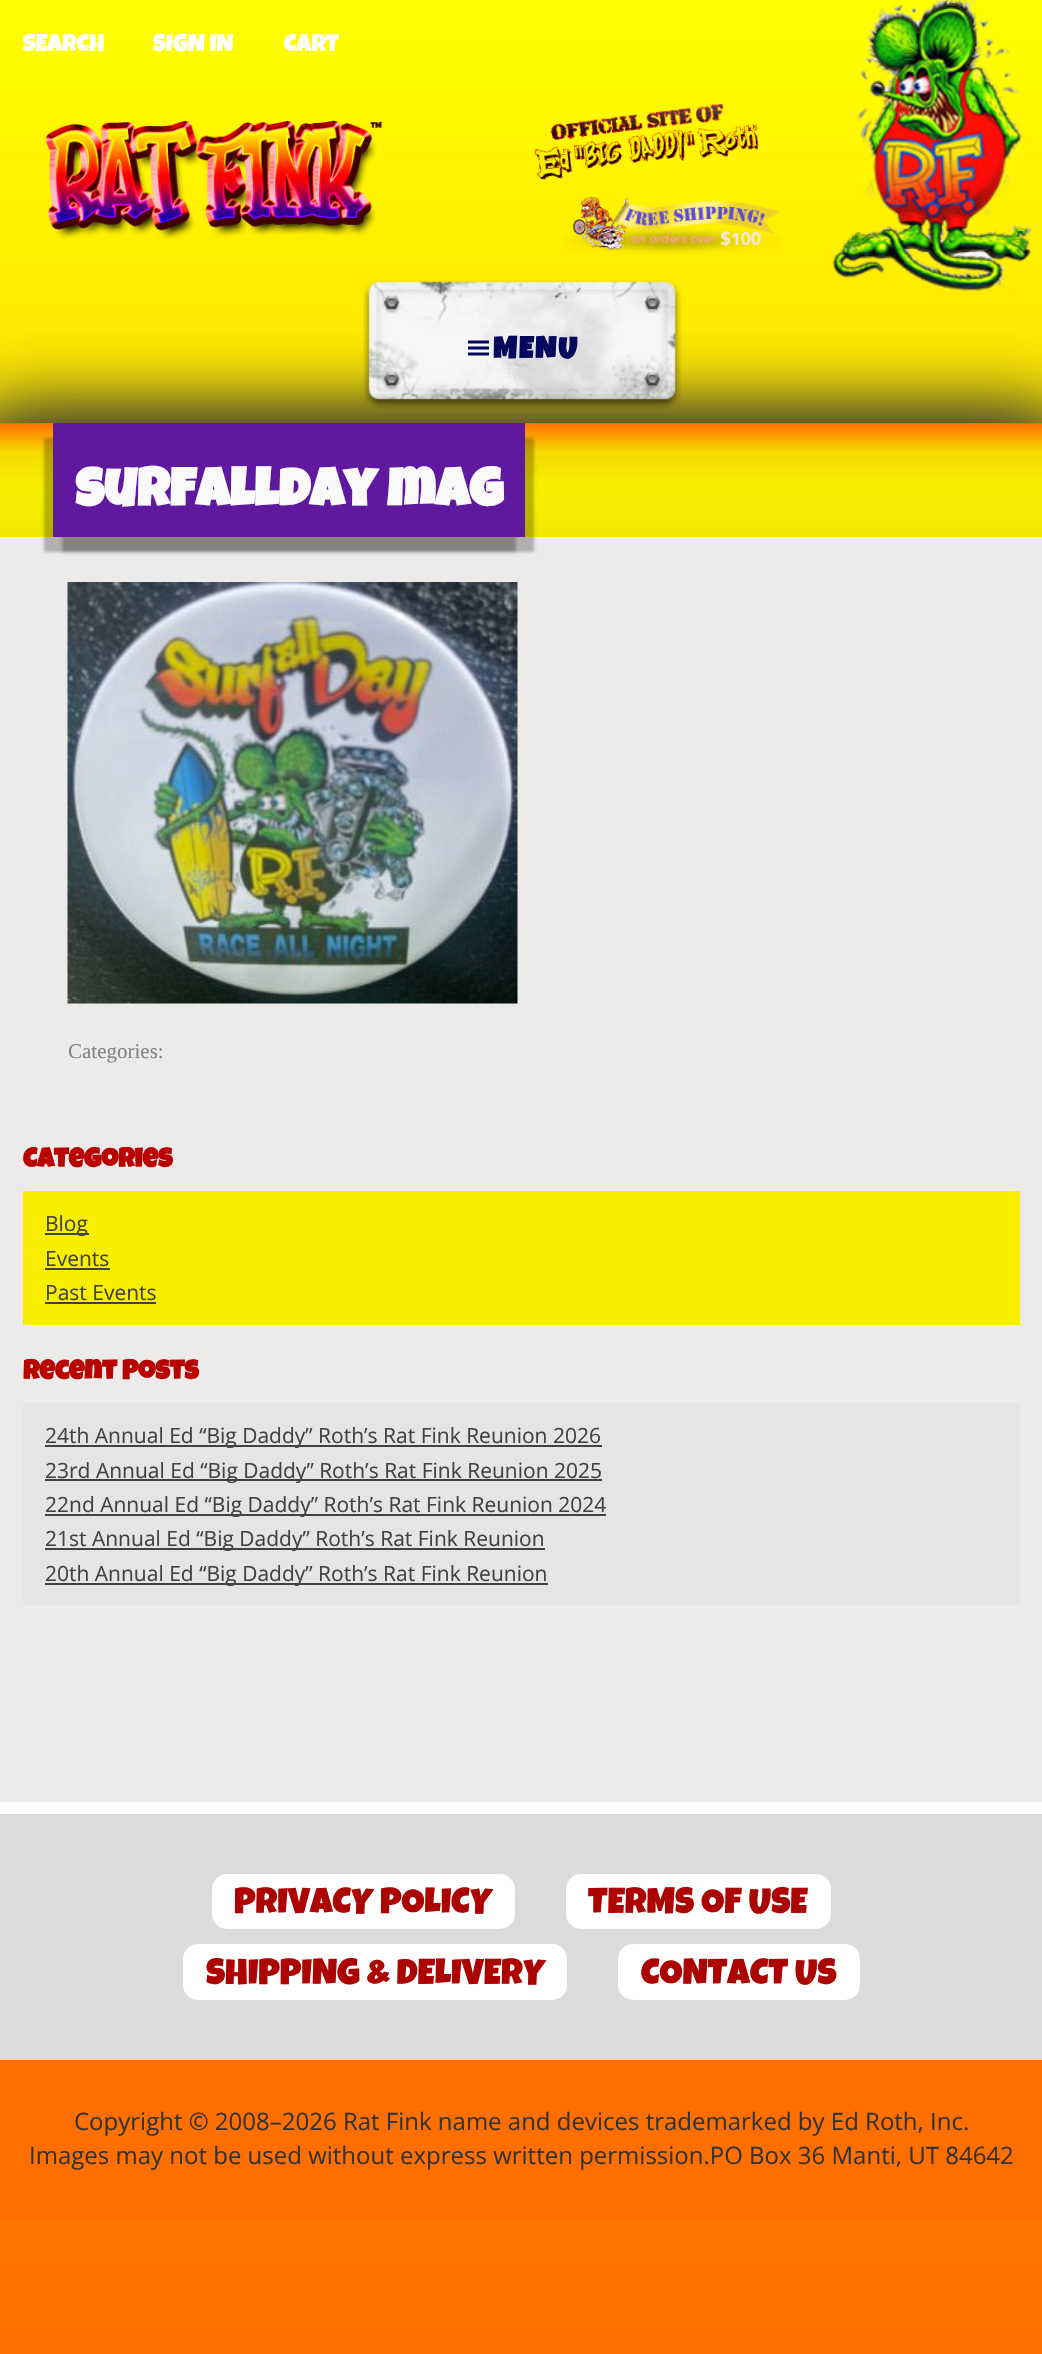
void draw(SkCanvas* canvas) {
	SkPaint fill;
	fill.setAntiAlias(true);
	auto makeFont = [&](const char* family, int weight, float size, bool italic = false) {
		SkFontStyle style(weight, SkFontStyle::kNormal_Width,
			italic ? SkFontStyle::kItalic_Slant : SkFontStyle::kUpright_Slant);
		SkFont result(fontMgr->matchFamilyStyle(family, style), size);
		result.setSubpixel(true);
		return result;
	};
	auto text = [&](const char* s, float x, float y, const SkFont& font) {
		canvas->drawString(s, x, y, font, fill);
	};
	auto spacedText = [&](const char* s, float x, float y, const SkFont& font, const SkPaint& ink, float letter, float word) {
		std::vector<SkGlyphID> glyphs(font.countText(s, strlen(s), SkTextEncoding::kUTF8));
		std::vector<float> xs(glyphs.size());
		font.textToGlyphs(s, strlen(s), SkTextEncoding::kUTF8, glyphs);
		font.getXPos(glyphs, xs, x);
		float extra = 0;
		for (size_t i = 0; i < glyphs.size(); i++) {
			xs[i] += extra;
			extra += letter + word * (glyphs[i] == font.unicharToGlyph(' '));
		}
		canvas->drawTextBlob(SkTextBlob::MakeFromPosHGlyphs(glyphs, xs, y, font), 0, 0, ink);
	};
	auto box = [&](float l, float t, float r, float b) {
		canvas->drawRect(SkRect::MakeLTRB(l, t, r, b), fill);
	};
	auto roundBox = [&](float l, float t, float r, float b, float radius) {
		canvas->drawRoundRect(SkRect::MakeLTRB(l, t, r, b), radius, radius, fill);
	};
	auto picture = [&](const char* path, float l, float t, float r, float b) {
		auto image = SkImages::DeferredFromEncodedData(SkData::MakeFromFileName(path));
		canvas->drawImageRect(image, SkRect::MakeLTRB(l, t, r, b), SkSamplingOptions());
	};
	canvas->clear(0xFFFFFFFF);
	{
		const SkColor colors[] = {0xFFFFFF00, 0xFFFF6F00};
		const float stops[] = {0, 1};
		const SkPoint ends[] = {{521, 0}, {521, 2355}};
		fill.setShader(SkGradientShader::MakeLinear(ends, colors, stops, 2, SkTileMode::kClamp));
		fill.setAlpha(255);
	}
	box(0, 0, 1042, 2354);
	picture("image0.png", 831, 0, 1032, 292);
	picture("image1.png", 565, 197, 781, 254);
	picture("image2.png", 45, 120, 383, 239);
	picture("image3.png", 534, 103, 759, 180);
	fill.setShader(nullptr);
	fill.setColor(0xFF333333);
	fill.setMaskFilter(SkMaskFilter::MakeBlur(kNormal_SkBlurStyle, 37.5f));
	canvas->drawRect(SkRect::MakeLTRB(-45, 423, 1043, 1802), fill);
	fill.setMaskFilter(nullptr);
	fill.setMaskFilter(SkMaskFilter::MakeBlur(kNormal_SkBlurStyle, 37.5f));
	canvas->drawRect(SkRect::MakeLTRB(0, 423, 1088, 1802), fill);
	fill.setMaskFilter(nullptr);
	picture("image4.png", 363, 280, 682, 410);
	picture("image5.png", 468, 340, 489, 356);
	fill.setColor(0xFFECEBEA);
	box(0, 537, 1042, 1802);
	{
		const SkColor colors[] = {0xFFFF6F00, 0xFFF6D900, 0xFFF8F000, 0xFFF0E800};
		const float stops[] = {0, 0.25f, 0.56f, 1};
		const SkPoint ends[] = {{521, 423}, {521, 537}};
		fill.setShader(SkGradientShader::MakeLinear(ends, colors, stops, 4, SkTileMode::kClamp));
		fill.setAlpha(255);
	}
	box(0, 423, 1042, 537);
	fill.setShader(nullptr);
	fill.setColor(0x40000000);
	fill.setMaskFilter(SkMaskFilter::MakeBlur(kNormal_SkBlurStyle, 1.5f));
	canvas->drawRect(SkRect::MakeLTRB(44, 438, 516, 552), fill);
	fill.setMaskFilter(nullptr);
	fill.setMaskFilter(SkMaskFilter::MakeBlur(kNormal_SkBlurStyle, 1.5f));
	canvas->drawRect(SkRect::MakeLTRB(62, 438, 534, 552), fill);
	fill.setMaskFilter(nullptr);
	fill.setColor(0xFF5F199F);
	box(53, 423, 525, 537);
	picture("image6.png", 67, 582, 518, 1004);
	fill.setColor(0xFFF7EE00);
	box(23, 1191, 1020, 1325);
	fill.setColor(0xFF424242);
	box(45, 1233, 89, 1235);
	box(45, 1268, 110, 1270);
	box(45, 1302, 156, 1304);
	fill.setColor(0xFFE5E5E5);
	box(23, 1403, 1020, 1605);
	fill.setColor(0xFF424242);
	box(45, 1445, 602, 1447);
	box(45, 1479, 602, 1481);
	box(45, 1514, 606, 1516);
	box(45, 1548, 545, 1550);
	box(45, 1583, 548, 1585);
	fill.setColor(0xFFDDDBD9);
	box(0, 1814, 1042, 2060);
	fill.setColor(0xFFFFFFFF);
	box(0, 1802, 1042, 1814);
	roundBox(212, 1874, 515, 1929, 15);
	roundBox(566, 1874, 831, 1929, 15);
	roundBox(183, 1944, 567, 2000, 15);
	roundBox(618, 1944, 860, 2000, 15);
	fill.setColor(0xFFFF6F00);
	box(0, 2060, 1042, 2219);
	auto font1 = makeFont("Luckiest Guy", 400, 24);
	fill.setColor(0xFFFFFFFF);
	text("SEARCH", 23, 51, font1);
	text("SIGN IN", 153, 51, font1);
	text("CART", 284, 51, font1);
	auto font2 = makeFont("Luckiest Guy", 700, 30);
	fill.setColor(0xFF04095D);
	spacedText("MENU", 493, 358, font2, fill, 2, 0);
	auto font3 = makeFont("Luckiest Guy", 700, 54);
	fill.setColor(0xFFFAF9F9);
	text("surfallday mag", 75, 506, font3);
	auto font4 = makeFont("Liberation Serif", 400, 21);
	fill.setColor(0xFF838383);
	text("Categories:", 68, 1058, font4);
	auto font5 = makeFont("Luckiest Guy", 700, 27);
	fill.setColor(0xFFB70400);
	text("Categories", 23, 1167, font5);
	auto font6 = makeFont("Open Sans", 400, 21);
	fill.setColor(0xFF424242);
	text("Blog", 45, 1231, font6);
	text("Events", 45, 1266, font6);
	text("Past Events", 45, 1300, font6);
	fill.setColor(0xFFB70400);
	text("Recent Posts", 23, 1379, font5);
	fill.setColor(0xFF424242);
	text("24th Annual Ed “Big Daddy” Roth’s Rat Fink Reunion 2026", 45, 1443, font6);
	text("23rd Annual Ed “Big Daddy” Roth’s Rat Fink Reunion 2025", 45, 1478, font6);
	text("22nd Annual Ed “Big Daddy” Roth’s Rat Fink Reunion 2024", 45, 1512, font6);
	text("21st Annual Ed “Big Daddy” Roth’s Rat Fink Reunion", 45, 1546, font6);
	text("20th Annual Ed “Big Daddy” Roth’s Rat Fink Reunion", 45, 1581, font6);
	auto font7 = makeFont("Luckiest Guy", 400, 36);
	fill.setColor(0xFFAC0401);
	text("PRIVACY POLICY", 234, 1913, font7);
	text("TERMS OF USE", 588, 1913, font7);
	text("SHIPPING & DELIVERY", 206, 1984, font7);
	text("CONTACT US", 641, 1984, font7);
	auto font8 = makeFont("Open Sans", 400, 24);
	fill.setColor(0xFF333333);
	text("Copyright © 2008–2026 Rat Fink name and devices trademarked by Ed Roth, Inc.", 74, 2130, font8);
	text("Images may not be used without express written permission.PO Box 36 Manti, UT 84642", 29, 2164, font8);
}
